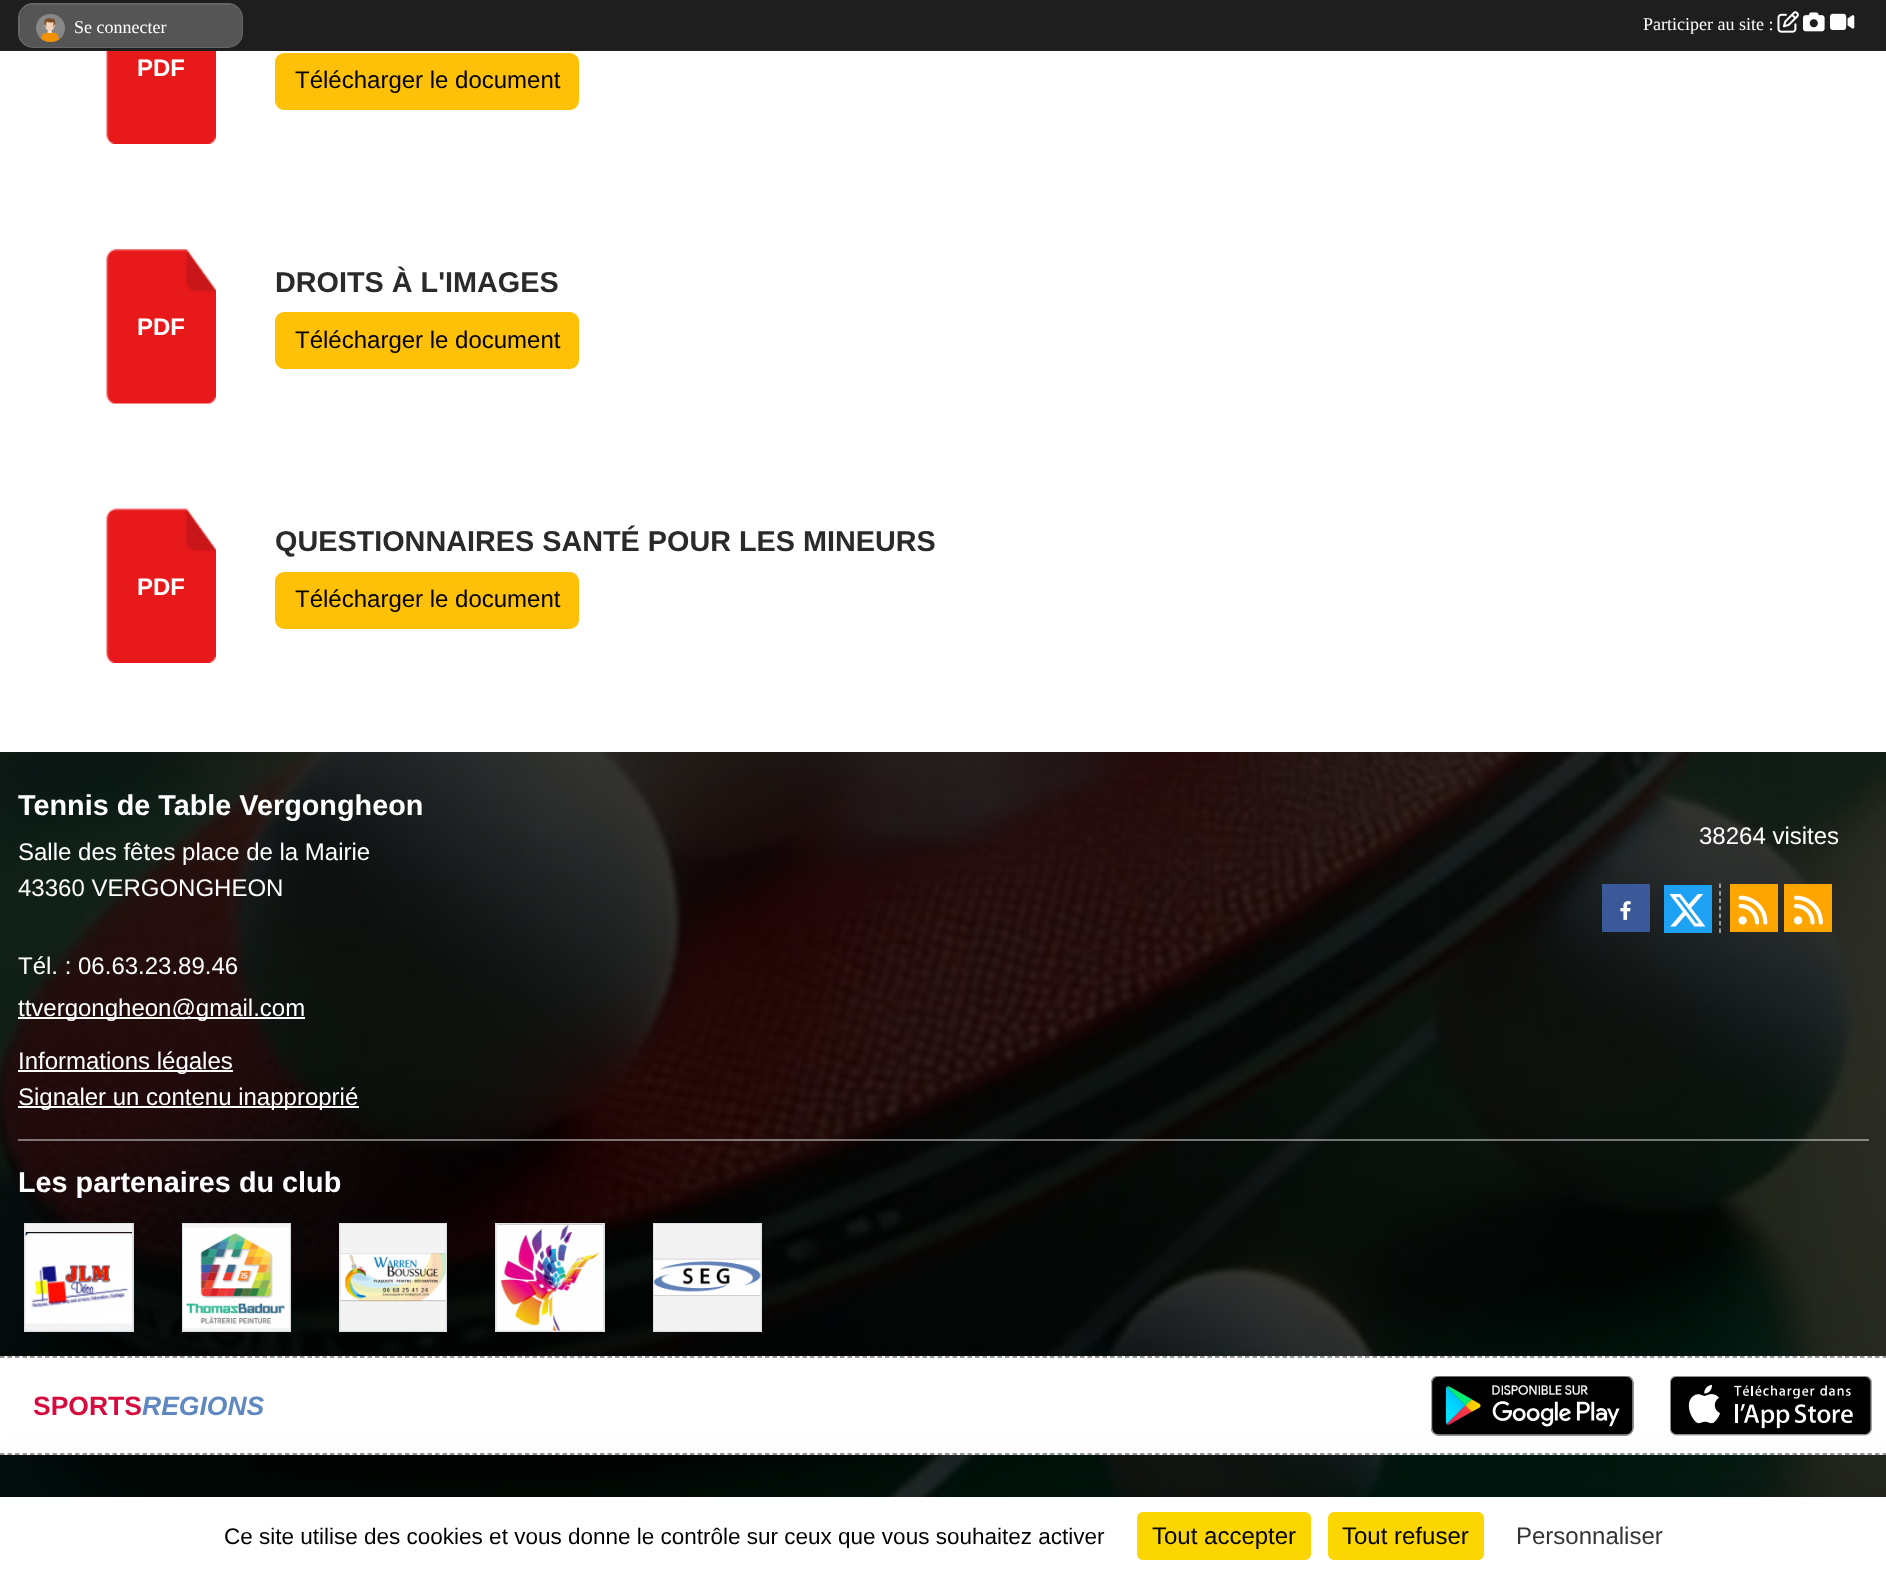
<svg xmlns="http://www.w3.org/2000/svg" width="1886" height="1574">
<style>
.a{font:18px Liberation Serif;fill:#fff}
.b{font:bold 24px Liberation Sans;fill:#fff}
.c{font:24px Liberation Sans;fill:#000}
.d{font:bold 28.8px Liberation Sans;fill:#2a2a2a}
.e{font:bold 28.8px Liberation Sans;fill:#fff}
.f{font:24px Liberation Sans;fill:#fff}
.g{font:bold 26.5px Liberation Sans;fill:#d60c3e}
.h{font:italic bold 26.5px Liberation Sans;fill:#5f88c0}
.i{font:22.5px Liberation Sans;fill:#000}
.j{font:24px Liberation Sans;fill:#333}
</style>
<defs>
<clipPath id="clip1"><path d="M210 1523h911v25H210z"/></clipPath>
</defs>
<rect width="100%" height="100%" fill="#fff"/>
<image href="1.png" x="0" y="752" width="1886" height="745"/>
<path fill="#1e1e1e" d="M0 0h1886v51H0z"/>
<rect fill="#333" stroke="#666" stroke-width="2" x="19" y="4" width="223" height="43" rx="14"/>
<rect fill="#555" x="20" y="5" width="222" height="42" rx="14"/>
<image href="2.png" x="36" y="14" width="29" height="28"/>
<image href="3.png" x="1777" y="11" width="22" height="22"/>
<image href="4.png" x="1803" y="12" width="22" height="20"/>
<image href="5.png" x="1830" y="13" width="25" height="17"/>
<image href="6.png" x="106" y="51" width="110" height="93"/>
<rect fill="#ffc107" stroke="#ffc107" stroke-width="2" x="276" y="54" width="302" height="55" rx="8"/>
<image href="7.png" x="106" y="249" width="110" height="155"/>
<rect fill="#ffc107" stroke="#ffc107" stroke-width="2" x="276" y="313" width="302" height="55" rx="8"/>
<image href="8.png" x="106" y="508" width="110" height="155"/>
<rect fill="#ffc107" stroke="#ffc107" stroke-width="2" x="276" y="573" width="302" height="55" rx="8"/>
<path fill="#000000cc" d="M0 752h1886v387H0z"/>
<path fill="#fff" d="M18 1017h287v2H18z"/>
<path fill="#fff" d="M18 1070h215v2H18z"/>
<path fill="#fff" d="M18 1106h341v2H18z"/>
<path fill="#3b5998" d="M1602 884h48v48H1602z"/>
<image href="9.png" x="1620" y="901" width="11" height="19"/>
<path fill="#1da1f2" d="M1664 885h48v48H1664z"/>
<image href="10.png" x="1670" y="894" width="36" height="33"/>
<path fill="none" stroke="#c0c0c0" stroke-width="1.5" stroke-dasharray="4.5 3" d="M1720 883.5v49.5"/>
<path fill="#ffa500" d="M1730 884h48v48H1730z"/>
<image href="11.png" x="1738" y="895" width="30" height="30"/>
<path fill="#ffa500" d="M1784 884h48v48H1784z"/>
<image href="12.png" x="1794" y="895" width="29" height="30"/>
<path fill="#000000cc" d="M0 1139h1886v72H0z"/>
<path fill="#ffffff40" d="M18 1139h1851v2H18z"/>
<path fill="#ffffff40" d="M18 1139h1851v2H18z"/>
<path fill="#000000cc" d="M0 1211h1886v145H0z"/>
<path fill="none" stroke="#dee2e6" stroke-width="2" d="M25 1224h108v107H25z"/>
<image href="13.png" x="25" y="1224" width="107" height="107"/>
<path fill="none" stroke="#dee2e6" stroke-width="2" d="M183 1224h107v107H183z"/>
<image href="14.png" x="183" y="1224" width="107" height="107"/>
<path fill="none" stroke="#dee2e6" stroke-width="2" d="M340 1224h106v107H340z"/>
<image href="15.png" x="340" y="1224" width="106" height="107"/>
<path fill="none" stroke="#dee2e6" stroke-width="2" d="M496 1224h108v107H496z"/>
<image href="16.png" x="496" y="1224" width="107" height="107"/>
<path fill="none" stroke="#dee2e6" stroke-width="2" d="M654 1224h107v107H654z"/>
<image href="17.png" x="654" y="1224" width="107" height="107"/>
<path fill="#fff" d="M0 1356h1886v99H0z"/>
<path fill="none" stroke="#777" stroke-width="1.5" stroke-dasharray="4.5 3" d="M0 1357h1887"/>
<path fill="none" stroke="#777" stroke-width="1.5" stroke-dasharray="4.5 3" d="M0 1454h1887"/>
<image href="18.png" x="1431" y="1376" width="203" height="60"/>
<image href="19.png" x="1670" y="1376" width="202" height="60"/>
<path fill="#000000cc" d="M0 1455h1886v42H0z"/>
<path fill="#00000040" filter="blur(45px)" d="M0 1527h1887v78H0z"/>
<path fill="#fff" d="M0 1497h1886v77H0z"/>
<rect fill="#fbd600" x="1137" y="1512" width="174" height="48" rx="6"/>
<rect fill="#fbd600" x="1328" y="1512" width="156" height="48" rx="6"/>
<text class="a" x="74" y="33">Se connecter</text>
<text class="a" x="1643" y="30">Participer au site :</text>
<text class="b" x="137" y="76">PDF</text>
<text class="c" x="295" y="88">Télécharger le document</text>
<text class="b" x="137" y="335">PDF</text>
<text class="d" x="275" y="292">DROITS À L'IMAGES</text>
<text class="c" x="295" y="348">Télécharger le document</text>
<text class="b" x="137" y="595">PDF</text>
<text class="d" x="275" y="551">QUESTIONNAIRES SANTÉ POUR LES MINEURS</text>
<text class="c" x="295" y="607">Télécharger le document</text>
<text class="e" x="18" y="815">Tennis de Table Vergongheon</text>
<text class="f" x="18" y="860">Salle des fêtes place de la Mairie</text>
<text class="f" x="18" y="896">43360 VERGONGHEON</text>
<text class="f" x="18" y="974">Tél. : 06.63.23.89.46</text>
<text class="f" x="18" y="1016">ttvergongheon@gmail.com</text>
<text class="f" x="18" y="1069">Informations légales</text>
<text class="f" x="18" y="1105">Signaler un contenu inapproprié</text>
<text class="f" x="1699" y="844">38264 visites</text>
<text class="e" x="18" y="1192">Les partenaires du club</text>
<text class="g" x="33" y="1415">SPORTS</text>
<text class="h" x="142" y="1415">REGIONS</text>
<g clip-path="url(#clip1)">
<text class="i" x="224" y="1544">Ce site utilise des cookies et vous donne le contrôle sur ceux que vous souhaitez activer</text>
</g>
<text class="c" x="1152" y="1544">Tout accepter</text>
<text class="c" x="1342" y="1544">Tout refuser</text>
<text class="j" x="1516" y="1544">Personnaliser</text>
</svg>
